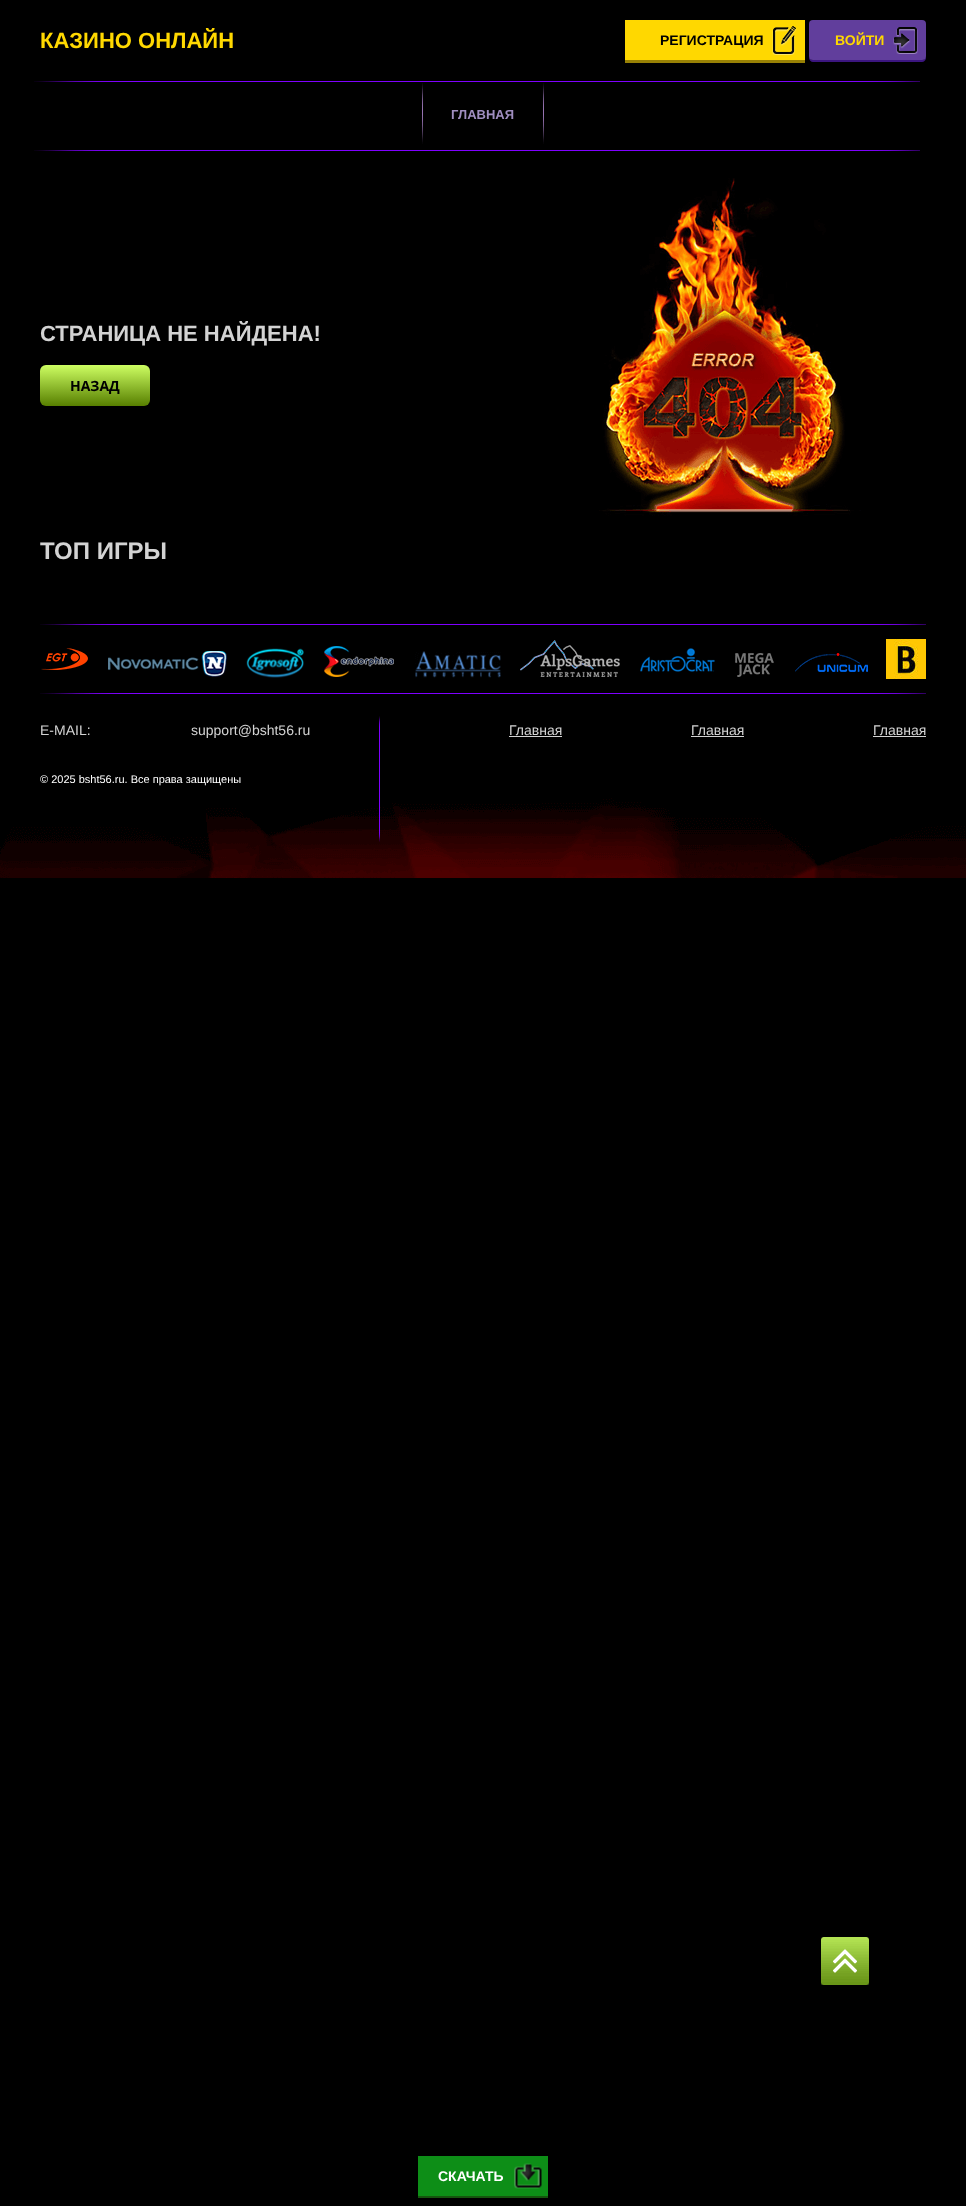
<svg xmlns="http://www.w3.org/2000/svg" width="966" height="2206">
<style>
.a{font:bold 22px Liberation Sans;fill:#ffd800}
.b{font:bold 14px Liberation Sans;fill:#000}
.c{font:bold 14px Liberation Sans;fill:#ffd800}
.d{font:bold 14px Liberation Sans;fill:#fff}
.e{font:bold 13px Liberation Sans;fill:#a08ec0}
.f{font:bold 22px Liberation Sans;fill:#d3d3d3}
.g{font:bold 14px Open Sans;fill:#000}
.h{font:bold 24px Liberation Sans;fill:#d3d3d3}
.i{font:14px Liberation Sans;fill:#d3d3d3}
.j{font:11px Liberation Sans;fill:#fff}
</style>
<defs>
<linearGradient id="g1" gradientUnits="userSpaceOnUse" x1="95" y1="365" x2="95" y2="406"><stop offset="0" stop-color="#cdfe62"/><stop offset="1" stop-color="#577f00"/></linearGradient>
</defs>
<rect width="100%" height="100%" fill="#000"/>
<path fill="#988105" d="M625 60h180v3H625z"/>
<path fill="#ffd800" d="M625 20h180v40H625z"/>
<image href="1.png" x="772" y="26" width="25" height="29"/>
<path fill="#3c1680" d="M809 56v2c0 2 2 4 4 4h109c2 0 4-2 4-4v-2c0 2-2 4-4 4h-109c-2 0-4-2-4-4z"/>
<rect fill="#613e9c" x="809" y="20" width="117" height="40" rx="4"/>
<image href="2.png" x="893" y="27" width="25" height="27"/>
<path fill="#15550d" d="M418 2196h130v2H418z"/>
<path fill="#0d8e17" d="M418 2156h130v40H418z"/>
<image href="3.png" x="514" y="2163" width="28" height="26"/>
<image href="4.png" x="34" y="81" width="886" height="1"/>
<image href="5.png" x="422" y="83" width="1" height="61"/>
<image href="5.png" x="543" y="83" width="1" height="61"/>
<image href="4.png" x="34" y="150" width="886" height="1"/>
<rect fill="url(#g1)" x="40" y="365" width="110" height="41" rx="6"/>
<image href="6.png" x="599" y="178" width="262" height="338"/>
<image href="7.png" x="0" y="798" width="966" height="80"/>
<image href="4.png" x="40" y="624" width="886" height="1"/>
<image href="8.png" x="41" y="648" width="47" height="22"/>
<image href="9.png" x="108" y="651" width="119" height="26"/>
<image href="10.png" x="246" y="648" width="58" height="30"/>
<image href="11.png" x="324" y="646" width="70" height="31"/>
<image href="12.png" x="415" y="651" width="86" height="27"/>
<image href="13.png" x="520" y="640" width="100" height="37"/>
<image href="14.png" x="640" y="648" width="75" height="24"/>
<image href="15.png" x="735" y="653" width="39" height="24"/>
<image href="16.png" x="795" y="653" width="73" height="19"/>
<image href="17.png" x="886" y="639" width="40" height="40"/>
<image href="4.png" x="40" y="693" width="886" height="1"/>
<image href="18.png" x="379" y="716" width="1" height="126"/>
<path fill="#d3d3d3" d="M509 736h53v1H509z"/>
<path fill="#d3d3d3" d="M691 736h53v1H691z"/>
<path fill="#d3d3d3" d="M873 736h53v1H873z"/>
<image href="19.png" x="821" y="1937" width="48" height="48"/>
<text class="a" x="40" y="48">КАЗИНО ОНЛАЙН</text>
<text class="b" x="660" y="45">РЕГИСТРАЦИЯ</text>
<text class="c" x="835" y="45">ВОЙТИ</text>
<text class="d" x="438" y="2181">СКАЧАТЬ</text>
<text class="e" x="451" y="119">ГЛАВНАЯ</text>
<text class="f" x="40" y="341">СТРАНИЦА НЕ НАЙДЕНА!</text>
<text class="g" x="70" y="391">НАЗАД</text>
<text class="h" x="40" y="559">ТОП ИГРЫ</text>
<text class="i" x="40" y="735">E-MAIL:</text>
<text class="i" x="191" y="735">support@bsht56.ru</text>
<text class="j" x="40" y="783">© 2025 bsht56.ru. Все права защищены</text>
<text class="i" x="509" y="735">Главная</text>
<text class="i" x="691" y="735">Главная</text>
<text class="i" x="873" y="735">Главная</text>
</svg>
